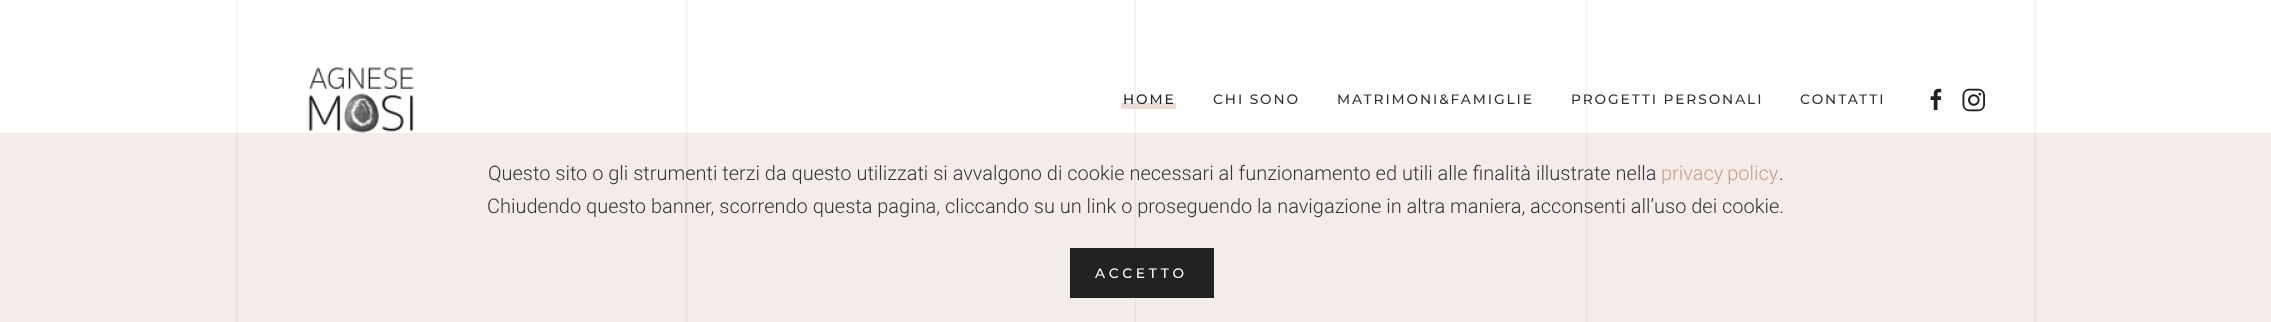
<svg xmlns="http://www.w3.org/2000/svg" width="2271" height="322">
<style>
.a{font:500 13.75px Montserrat;letter-spacing:1.9px;fill:#222}
.b{font:500 13.75px Montserrat;letter-spacing:1.9px;fill:#333}
.c{font:300 20px Roboto;fill:#333}
.d{font:300 20px Roboto;fill:#c99c88}
.e{font:500 13.75px Montserrat;letter-spacing:3.75px;fill:#fff}
</style>
<rect width="100%" height="100%" fill="#fff"/>
<image href="1.png" x="236" y="0" width="1800" height="133"/>
<image href="2.png" x="308" y="67" width="106" height="66"/>
<path fill="#eadbd4" d="M1121 103h55v6H1121z"/>
<image href="3.png" x="1930" y="88" width="12" height="22"/>
<image href="4.png" x="1962" y="88" width="23" height="24"/>
<path fill="#f4ece9" d="M0 133h2271v189H0z"/>
<image href="5.png" x="236" y="133" width="1800" height="189"/>
<path fill="#222" d="M1070 248h144v50H1070z"/>
<text class="a" x="1123" y="104">HOME</text>
<text class="b" x="1213" y="104">CHI SONO</text>
<text class="b" x="1337" y="104">MATRIMONI&amp;FAMIGLIE</text>
<text class="b" x="1571" y="104">PROGETTI PERSONALI</text>
<text class="b" x="1800" y="104">CONTATTI</text>
<text class="c" x="488" y="180">Questo sito o gli strumenti terzi da questo utilizzati si avvalgono di cookie necessari al funzionamento ed utili alle finalità illustrate nella</text>
<text class="d" x="1661" y="180" word-spacing="-1">privacy policy</text>
<text class="c" x="1779" y="180">.</text>
<text class="c" x="487" y="213">Chiudendo questo banner, scorrendo questa pagina, cliccando su un link o proseguendo la navigazione in altra maniera, acconsenti all’uso dei cookie.</text>
<text class="e" x="1095" y="278">ACCETTO</text>
</svg>
